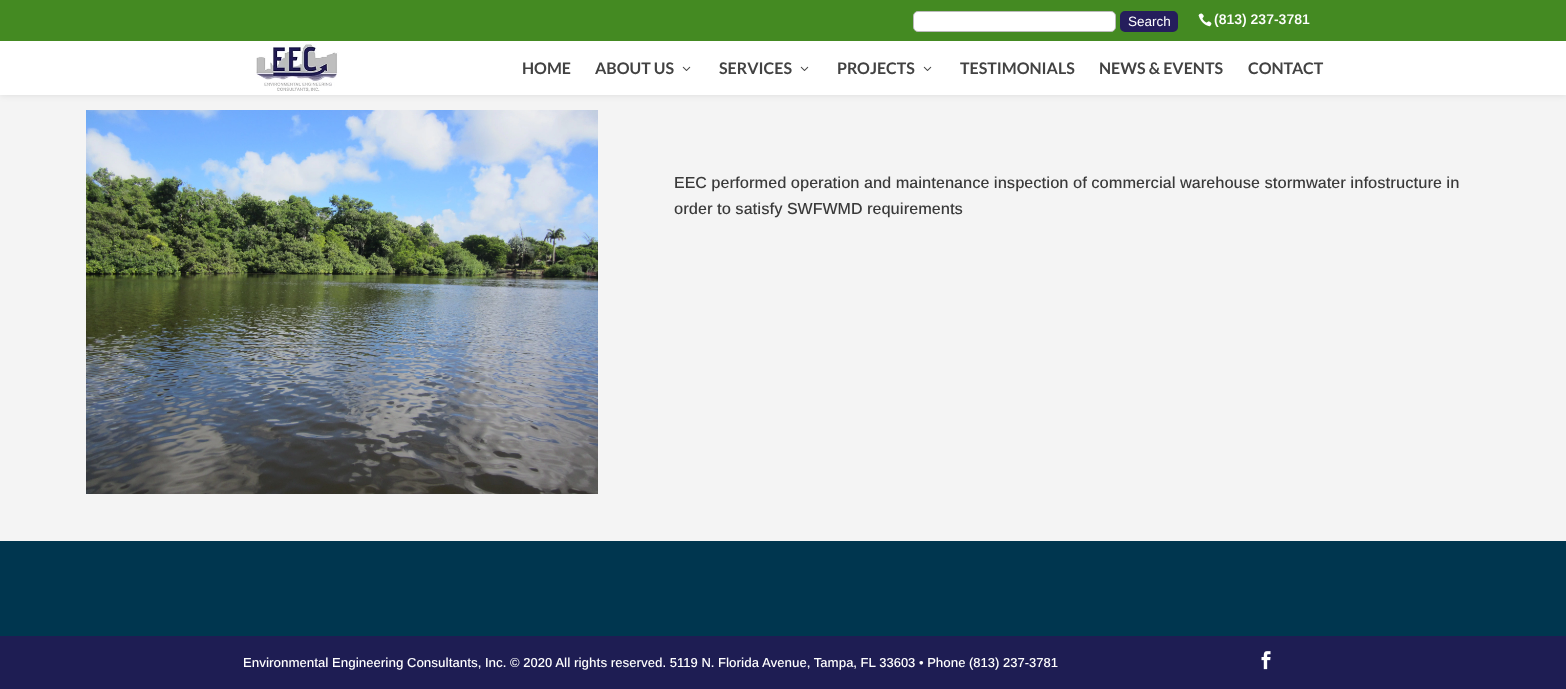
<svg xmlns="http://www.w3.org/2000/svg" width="1566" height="689">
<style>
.a{font:13.5px Arimo;fill:#fff}
.b{font:600 14px Arimo;fill:#fff}
.c{font:bold 16px Lato;fill:#424242}
.d{font:500 16px Arimo;fill:#3a3a3a}
.e{font:500 13px Arimo;fill:#fff}
</style>
<rect width="100%" height="100%" fill="#1e1d53"/>
<path fill="#f4f4f4" d="M0 95h1566v446H0z"/>
<path fill="#0000001a" filter="blur(3.5px)" d="M0 41h1566v54H0z"/>
<path fill="#448a22" d="M0 0h1566v41H0z"/>
<rect fill="#fff" stroke="#bbb" x="913.5" y="11.5" width="202" height="20" rx="4.5"/>
<rect fill="#251e5c" stroke="#251e5c" stroke-width="2" x="1121" y="12" width="56" height="19" rx="4"/>
<image href="1.png" x="1198" y="13" width="14" height="14"/>
<path fill="#fff" d="M0 41h1566v54H0z"/>
<image href="2.png" x="256" y="43" width="83" height="49"/>
<image href="3.png" x="682" y="66" width="9" height="5"/>
<image href="3.png" x="800" y="66" width="9" height="5"/>
<image href="3.png" x="923" y="66" width="9" height="5"/>
<image href="4.png" x="86" y="110" width="512" height="384"/>
<path fill="#00364f" d="M0 541h1566v95H0z"/>
<image href="5.png" x="1261" y="651" width="10" height="19"/>
<text class="a" x="1128" y="26">Search</text>
<text class="b" x="1214" y="24">(813) 237-3781</text>
<text class="c" x="522" y="74">HOME</text>
<text class="c" x="595" y="74">ABOUT US</text>
<text class="c" x="719" y="74">SERVICES</text>
<text class="c" x="837" y="74">PROJECTS</text>
<text class="c" x="960" y="74">TESTIMONIALS</text>
<text class="c" x="1099" y="74">NEWS &amp; EVENTS</text>
<text class="c" x="1248" y="74">CONTACT</text>
<text class="d" x="674" y="188">EEC performed operation and maintenance inspection of commercial warehouse stormwater infostructure in</text>
<text class="d" x="674" y="214">order to satisfy SWFWMD requirements</text>
<text class="e" x="243" y="667">Environmental Engineering Consultants, Inc. © 2020 All rights reserved. 5119 N. Florida Avenue, Tampa, FL 33603 • Phone (813) 237-3781</text>
</svg>
